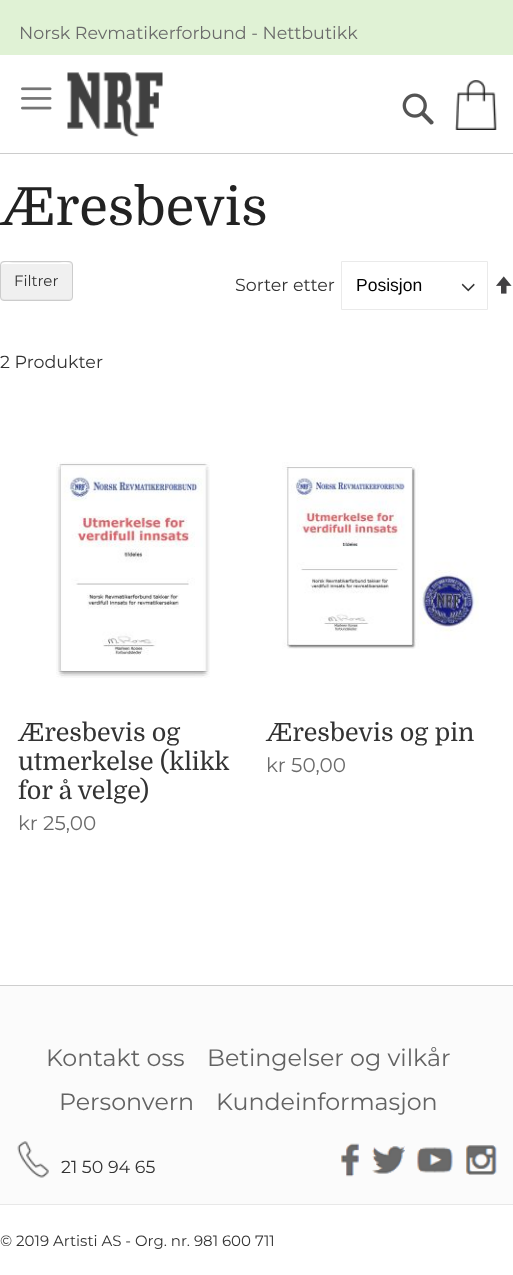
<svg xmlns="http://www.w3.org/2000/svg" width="513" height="1275">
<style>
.a{font:17.5px Montserrat;fill:#6b6b6b}
.b{font:52.5px Domine;fill:#222}
.c{font:15px Montserrat;fill:#333}
.d{font:17.5px Montserrat;fill:#333}
.e{font:17.5px Liberation Sans;fill:#000}
.f{font:25px Domine;fill:#333}
.g{font:20px Montserrat;fill:#6b6b6b}
.h{font:23.75px Montserrat;fill:#636363}
</style>
<rect width="100%" height="100%" fill="#fff"/>
<path fill="#ccc" d="M0 153h513v1H0z"/>
<path fill="#e0f2d5" d="M0 0h513v55H0z"/>
<image href="1.png" x="21" y="87" width="31" height="23"/>
<image href="2.png" x="67" y="72" width="96" height="65"/>
<image href="3.png" x="402" y="93" width="32" height="32"/>
<image href="4.png" x="455" y="80" width="42" height="50"/>
<rect fill="#f0f0f0" y="261" width="73" height="40" rx="4"/>
<path fill="#e5e5e5" d="M1 296c0 7 8 4 13 4h44c5 0 13 3 13-4c0 2-1 3-2 3h-65c-2 0-3-1-3-3z"/>
<path fill="#fff" d="M4 264h66l1 2c0-6-12-3-13-3h-44c-1 0-13-3-13 3c0-1 1-2 3-2z"/>
<rect fill="none" stroke="#ccc" x="0.5" y="261.5" width="72" height="39" rx="3.5"/>
<image href="5.png" x="461" y="283" width="14" height="9"/>
<path fill="none" stroke="#eaeaea" d="M341.5 261.5h146v48H341.5z"/>
<image href="6.png" x="496" y="276" width="16" height="18"/>
<image href="7.png" x="56" y="462" width="154" height="216"/>
<image href="8.png" x="282" y="462" width="197" height="187"/>
<path fill="#fbfbfb" d="M0 986h513v218H0z"/>
<path fill="#e8e8e8" d="M0 1204h513v1H0z"/>
<path fill="#cecece" d="M0 985h513v1H0z"/>
<image href="9.png" x="17" y="1141" width="32" height="37"/>
<image href="10.png" x="341" y="1143" width="18" height="34"/>
<image href="11.png" x="372" y="1146" width="33" height="28"/>
<image href="12.png" x="417" y="1147" width="36" height="26"/>
<image href="13.png" x="466" y="1145" width="31" height="30"/>
<text class="a" x="19" y="39">Norsk Revmatikerforbund - Nettbutikk</text>
<text class="b" x="0" y="225">Æresbevis</text>
<text class="c" x="14" y="286">Filtrer</text>
<text class="d" x="235" y="291">Sorter etter</text>
<text class="e" x="356" y="291">Posisjon</text>
<text class="d" x="0" y="368">2 Produkter</text>
<text class="f" x="18" y="741">Æresbevis og</text>
<text class="f" x="18" y="770">utmerkelse (klikk</text>
<text class="f" x="18" y="799">for å velge)</text>
<text class="g" x="18" y="830">kr 25,00</text>
<text class="f" x="266" y="741">Æresbevis og pin</text>
<text class="g" x="266" y="772">kr 50,00</text>
<text class="h" x="46" y="1066">Kontakt oss</text>
<text class="h" x="207" y="1066">Betingelser og vilkår</text>
<text class="h" x="59" y="1110">Personvern</text>
<text class="h" x="216" y="1110">Kundeinformasjon</text>
<text class="d" x="61" y="1173">21 50 94 65</text>
<text class="c" x="0" y="1246">© 2019 Artisti AS - Org. nr. 981 600 711</text>
</svg>
